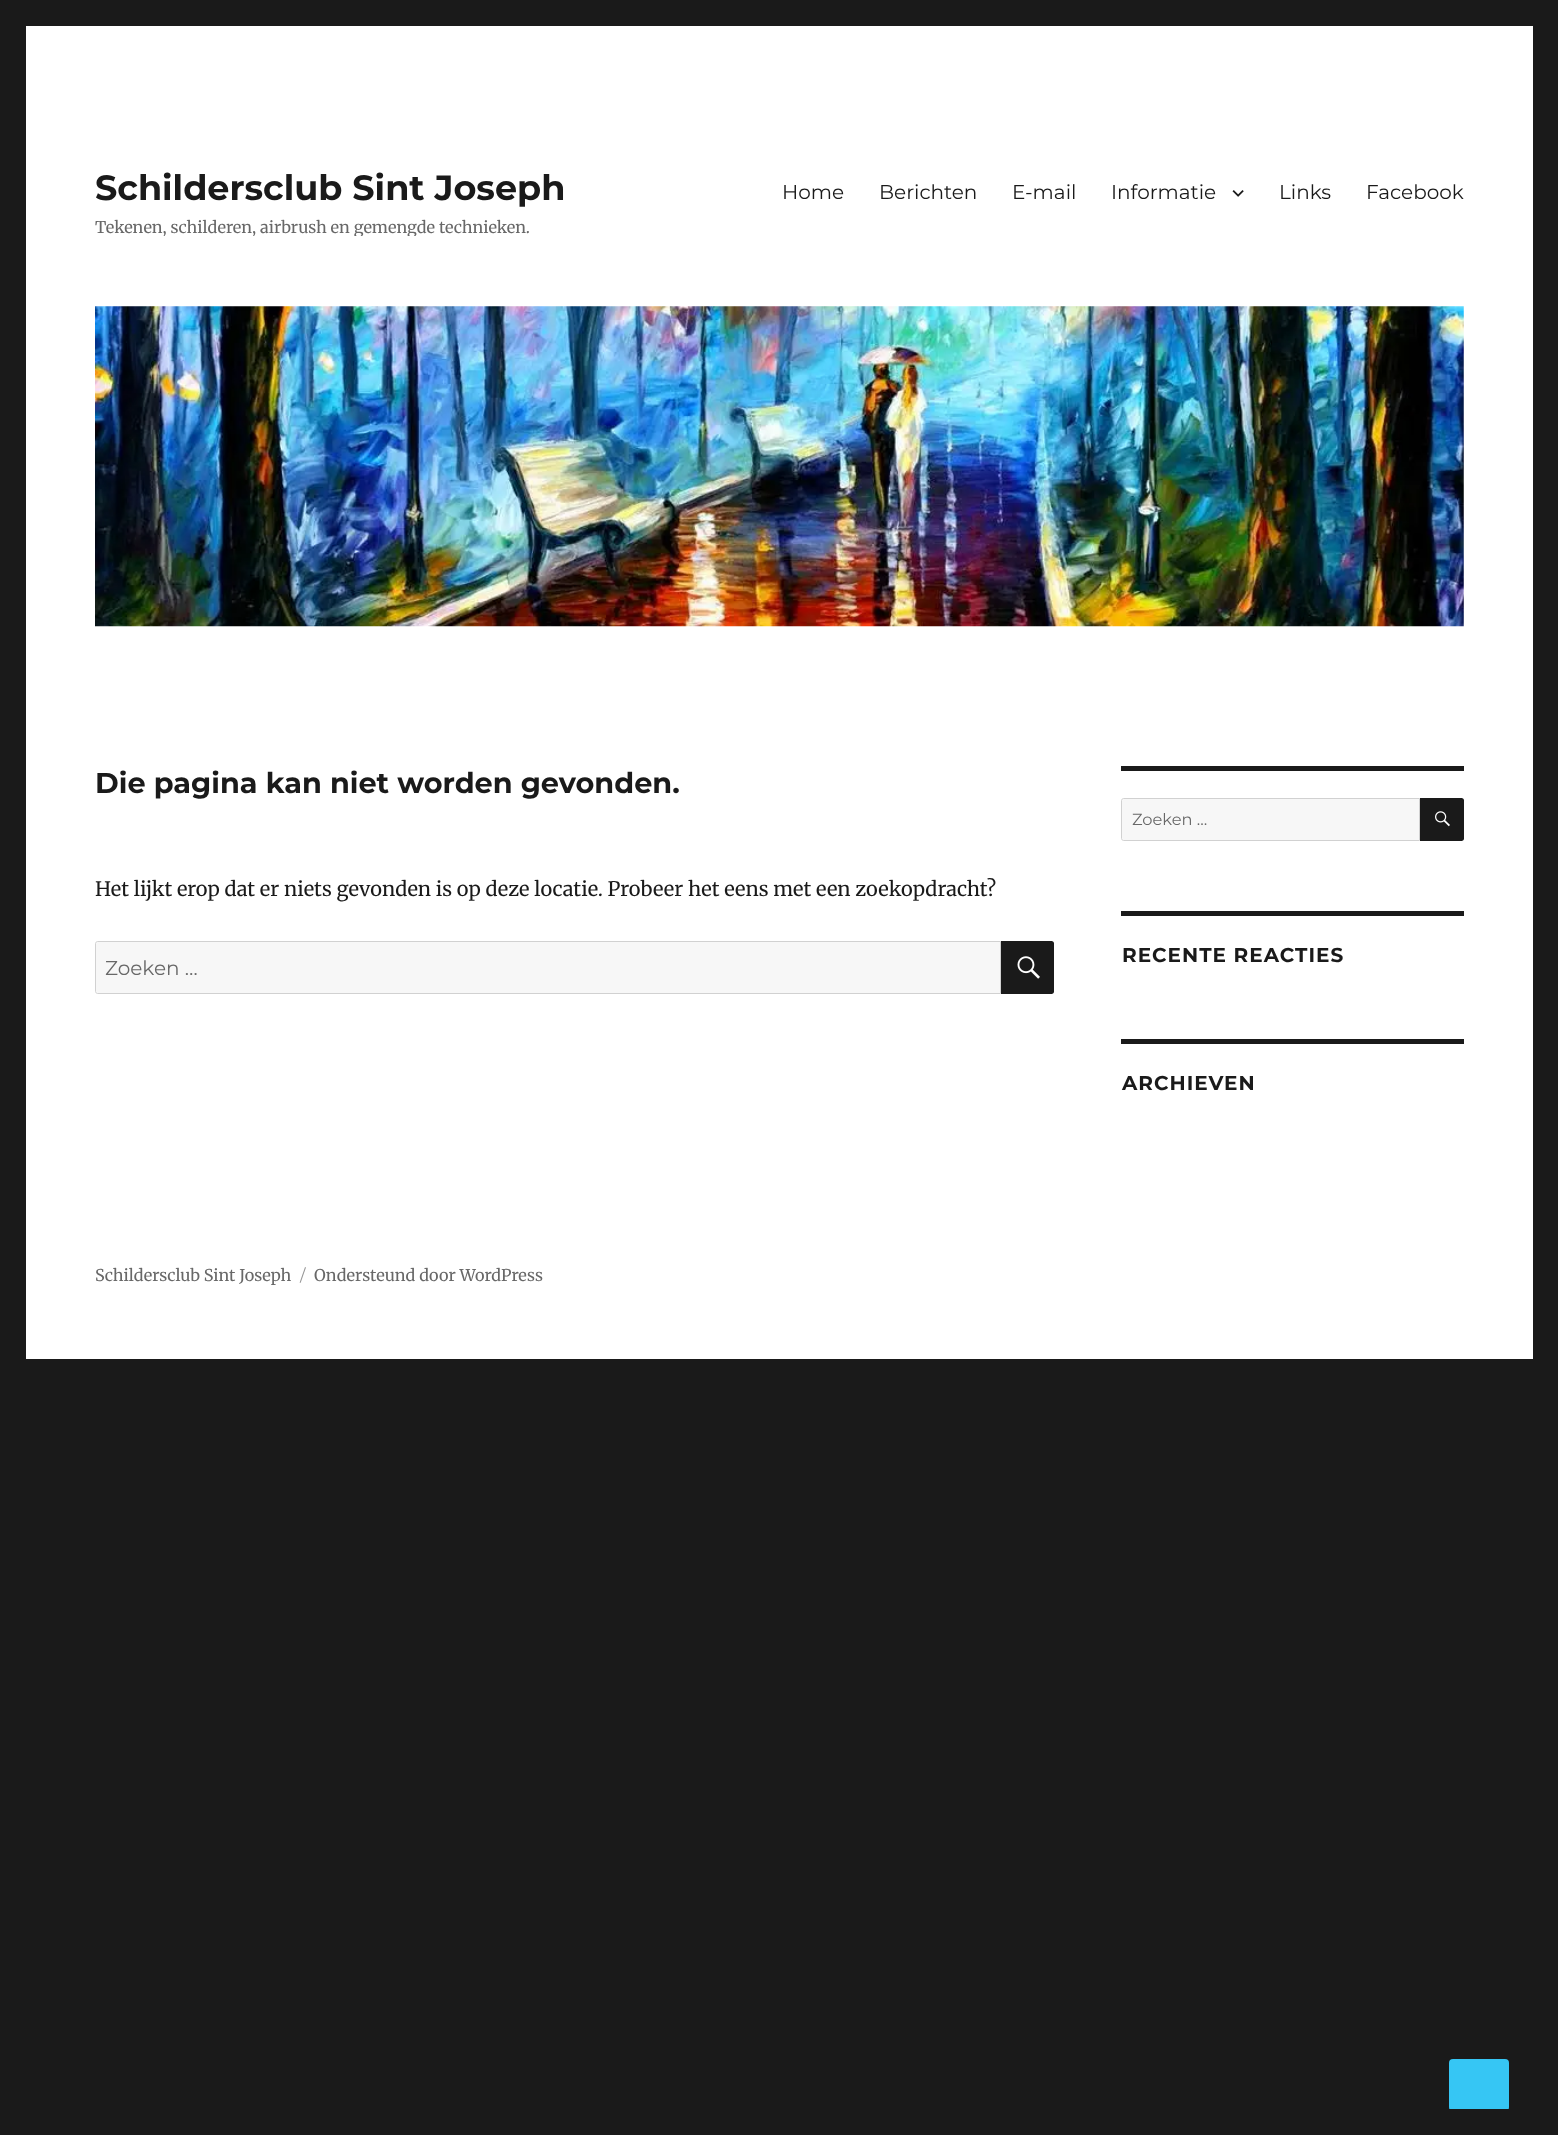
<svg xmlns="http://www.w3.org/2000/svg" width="1558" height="2135">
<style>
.a{font:bold 35px Montserrat;fill:#1a1a1a}
.b{font:16.25px Merriweather;fill:#686868}
.c{font:20px Montserrat;fill:#1a1a1a}
.d{font:bold 28.75px Montserrat;fill:#1a1a1a}
.e{font:20px Merriweather;fill:#1a1a1a}
.f{font:20px Montserrat;fill:#686868}
.g{font:16.25px Montserrat;fill:#686868}
.h{font:bold 20px Montserrat;letter-spacing:1px;fill:#1a1a1a}
.i{font:16.25px Montserrat;fill:#959595}
</style>
<defs>
<clipPath id="clip1"><path d="M95 166h470v70H95z"/></clipPath>
</defs>
<rect width="100%" height="100%" fill="#1a1a1a"/>
<path fill="#fff" d="M26 26h1507v1333H26z"/>
<image href="1.png" x="1232" y="190" width="12" height="7"/>
<image href="2.png" x="95" y="306" width="1369" height="321"/>
<path fill="#f7f7f7" stroke="#d1d1d1" d="M97.5 941.5h903v52h-903c-1 0-2-1-2-2v-48c0-1 1-2 2-2z"/>
<path fill="#1a1a1a" d="M1001 941h50.5c1.5 0 2.5 1 2.5 2.5v48c0 1.5-1 2.5-2.5 2.5h-50.5z"/>
<image href="3.png" x="1017" y="956" width="23" height="23"/>
<path fill="#1a1a1a" d="M1121 766h343v5H1121z"/>
<path fill="#f7f7f7" stroke="#d1d1d1" d="M1123.5 798.5h296v42h-296c-1 0-2-1-2-2v-38c0-1 1-2 2-2z"/>
<path fill="#1a1a1a" d="M1420 798h41.5c1.5 0 2.5 1 2.5 2.5v38c0 1.5-1 2.5-2.5 2.5h-41.5z"/>
<image href="4.png" x="1435" y="811" width="15" height="16"/>
<path fill="#1a1a1a" d="M1121 911h343v5H1121z"/>
<path fill="#1a1a1a" d="M1121 1039h343v5H1121z"/>
<rect fill="#36c6f4" x="1449" y="2059" width="60" height="52" rx="4"/>
<path fill="#1a1a1a" d="M1449 2109h60v2H1449z"/>
<text class="a" x="95" y="200">Schildersclub Sint Joseph</text>
<g clip-path="url(#clip1)">
<text class="b" x="95" y="233">Tekenen, schilderen, airbrush en gemengde technieken.</text>
</g>
<text class="c" x="782" y="199">Home</text>
<text class="c" x="879" y="199">Berichten</text>
<text class="c" x="1012" y="199">E-mail</text>
<text class="c" x="1111" y="199">Informatie</text>
<text class="c" x="1279" y="199">Links</text>
<text class="c" x="1366" y="199">Facebook</text>
<text class="d" x="95" y="793">Die pagina kan niet worden gevonden.</text>
<text class="e" x="95" y="896">Het lijkt erop dat er niets gevonden is op deze locatie. Probeer het eens met een zoekopdracht?</text>
<text class="f" x="105" y="975">Zoeken …</text>
<text class="g" x="1132" y="825">Zoeken …</text>
<text class="h" x="1122" y="962">RECENTE REACTIES</text>
<text class="h" x="1122" y="1090">ARCHIEVEN</text>
<text class="b" x="95" y="1281">Schildersclub Sint Joseph</text>
<text class="i" x="300" y="1281">/</text>
<text class="b" x="314" y="1281">Ondersteund door WordPress</text>
</svg>
